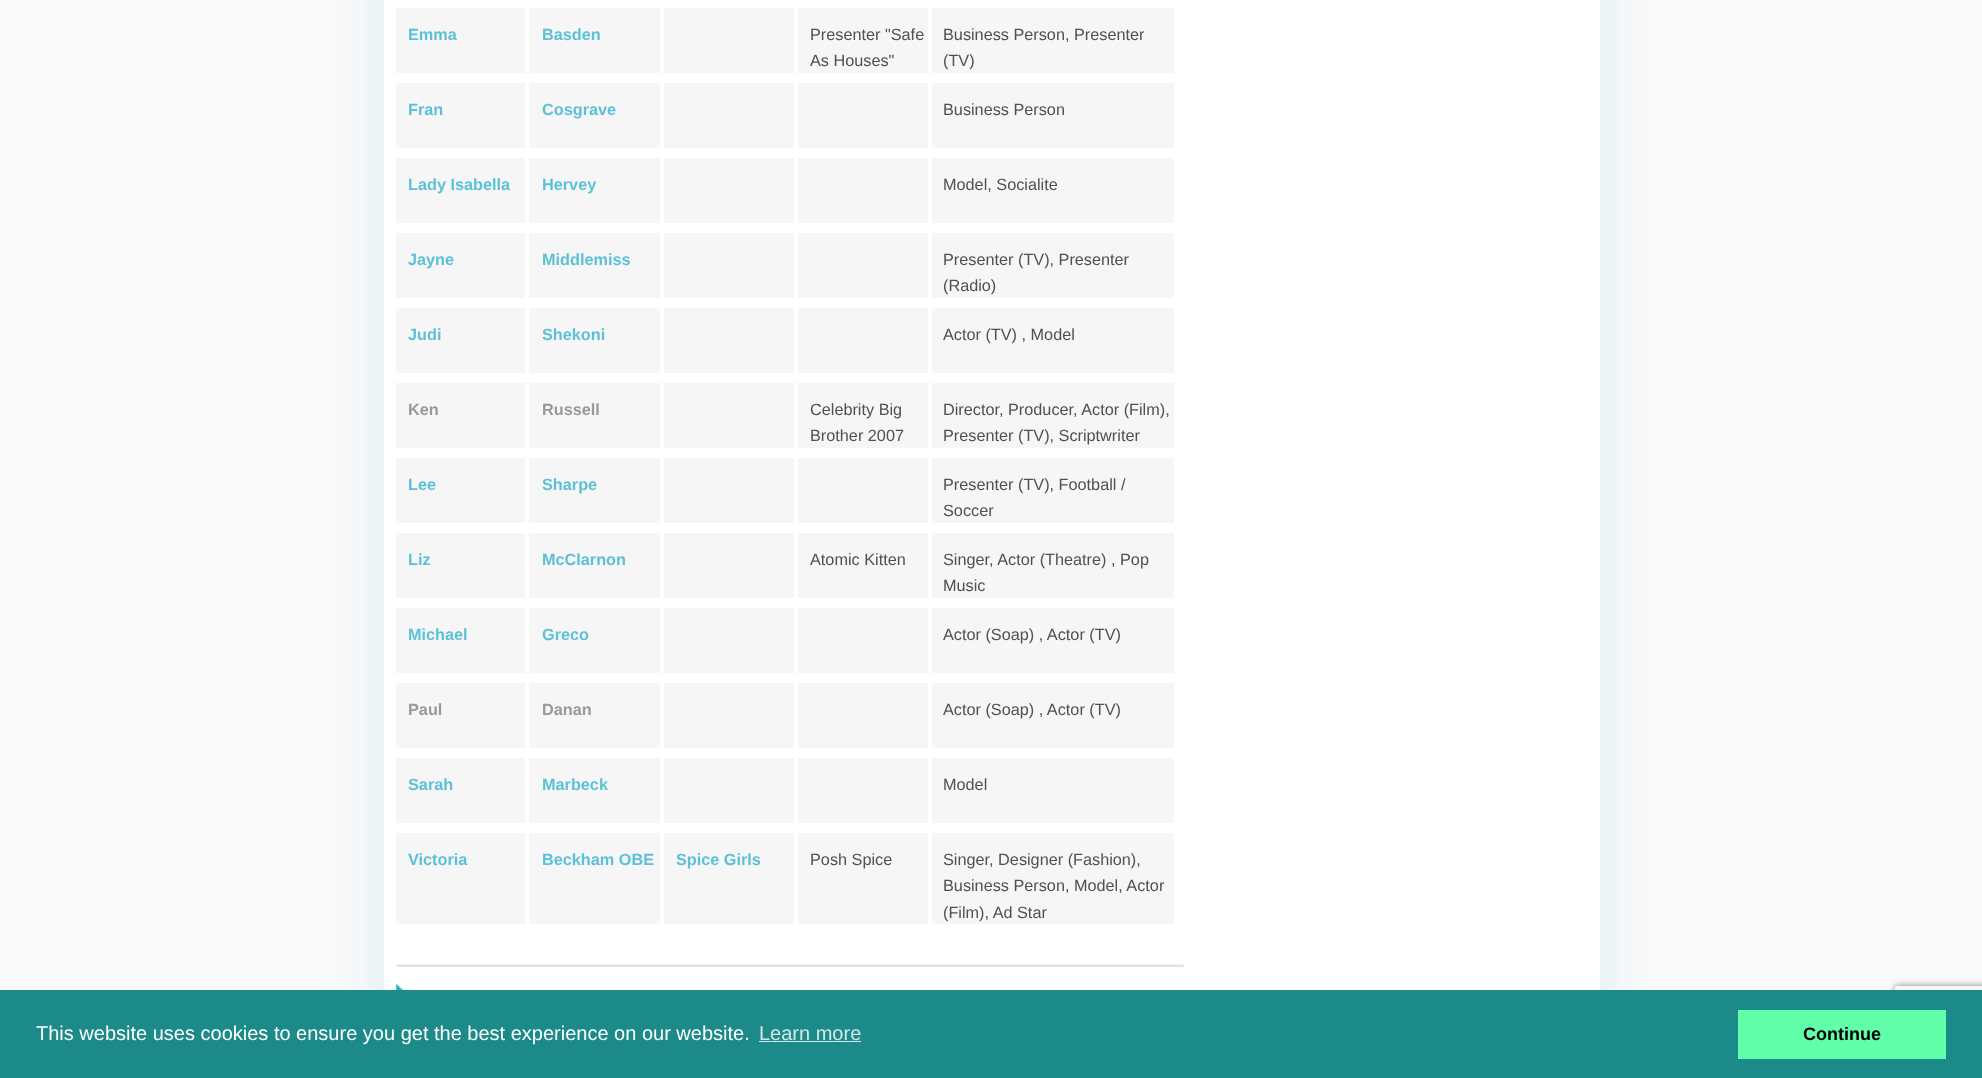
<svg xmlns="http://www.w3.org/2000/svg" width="1982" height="1078">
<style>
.a{font:bold 16.25px Liberation Sans;fill:#5cc1d7}
.b{font:16.25px Liberation Sans;fill:#505050}
.c{font:bold 16.25px Liberation Sans;fill:#999}
.d{font:20px Liberation Sans;fill:#fff}
.e{font:20px Liberation Sans;fill:#d2e8e8}
.f{font:bold 18px Liberation Sans;fill:#000}
</style>
<defs>
<clipPath id="clip1"><path d="M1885 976h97v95h-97zm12.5 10h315c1.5 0 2.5 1 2.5 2.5v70c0 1.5-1 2.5-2.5 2.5h-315c-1.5 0-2.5-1-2.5-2.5v-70c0-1.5 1-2.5 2.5-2.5z" clip-rule="evenodd"/></clipPath>
</defs>
<rect width="100%" height="100%" fill="#f9f9f9"/>
<path fill="#d7edf3" filter="blur(25px)" d="M384 -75h1216v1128H384z"/>
<path fill="#fff" d="M384 0h1216v990H384z"/>
<path fill="#f6f6f6" d="M396 8h778v65H396z"/>
<path fill="#fff" d="M525 8h4v65H525z"/>
<path fill="#fff" d="M660 8h4v65H660z"/>
<path fill="#fff" d="M794 8h4v65H794z"/>
<path fill="#fff" d="M928 8h4v65H928z"/>
<path fill="#f6f6f6" d="M396 83h778v65H396z"/>
<path fill="#fff" d="M525 83h4v65H525z"/>
<path fill="#fff" d="M660 83h4v65H660z"/>
<path fill="#fff" d="M794 83h4v65H794z"/>
<path fill="#fff" d="M928 83h4v65H928z"/>
<path fill="#f6f6f6" d="M396 158h778v65H396z"/>
<path fill="#fff" d="M525 158h4v65H525z"/>
<path fill="#fff" d="M660 158h4v65H660z"/>
<path fill="#fff" d="M794 158h4v65H794z"/>
<path fill="#fff" d="M928 158h4v65H928z"/>
<path fill="#f6f6f6" d="M396 233h778v65H396z"/>
<path fill="#fff" d="M525 233h4v65H525z"/>
<path fill="#fff" d="M660 233h4v65H660z"/>
<path fill="#fff" d="M794 233h4v65H794z"/>
<path fill="#fff" d="M928 233h4v65H928z"/>
<path fill="#f6f6f6" d="M396 308h778v65H396z"/>
<path fill="#fff" d="M525 308h4v65H525z"/>
<path fill="#fff" d="M660 308h4v65H660z"/>
<path fill="#fff" d="M794 308h4v65H794z"/>
<path fill="#fff" d="M928 308h4v65H928z"/>
<path fill="#f6f6f6" d="M396 383h778v65H396z"/>
<path fill="#fff" d="M525 383h4v65H525z"/>
<path fill="#fff" d="M660 383h4v65H660z"/>
<path fill="#fff" d="M794 383h4v65H794z"/>
<path fill="#fff" d="M928 383h4v65H928z"/>
<path fill="#f6f6f6" d="M396 458h778v65H396z"/>
<path fill="#fff" d="M525 458h4v65H525z"/>
<path fill="#fff" d="M660 458h4v65H660z"/>
<path fill="#fff" d="M794 458h4v65H794z"/>
<path fill="#fff" d="M928 458h4v65H928z"/>
<path fill="#f6f6f6" d="M396 533h778v65H396z"/>
<path fill="#fff" d="M525 533h4v65H525z"/>
<path fill="#fff" d="M660 533h4v65H660z"/>
<path fill="#fff" d="M794 533h4v65H794z"/>
<path fill="#fff" d="M928 533h4v65H928z"/>
<path fill="#f6f6f6" d="M396 608h778v65H396z"/>
<path fill="#fff" d="M525 608h4v65H525z"/>
<path fill="#fff" d="M660 608h4v65H660z"/>
<path fill="#fff" d="M794 608h4v65H794z"/>
<path fill="#fff" d="M928 608h4v65H928z"/>
<path fill="#f6f6f6" d="M396 683h778v65H396z"/>
<path fill="#fff" d="M525 683h4v65H525z"/>
<path fill="#fff" d="M660 683h4v65H660z"/>
<path fill="#fff" d="M794 683h4v65H794z"/>
<path fill="#fff" d="M928 683h4v65H928z"/>
<path fill="#f6f6f6" d="M396 758h778v65H396z"/>
<path fill="#fff" d="M525 758h4v65H525z"/>
<path fill="#fff" d="M660 758h4v65H660z"/>
<path fill="#fff" d="M794 758h4v65H794z"/>
<path fill="#fff" d="M928 758h4v65H928z"/>
<path fill="#f6f6f6" d="M396 833h778v91H396z"/>
<path fill="#fff" d="M525 833h4v91H525z"/>
<path fill="#fff" d="M660 833h4v91H660z"/>
<path fill="#fff" d="M794 833h4v91H794z"/>
<path fill="#fff" d="M928 833h4v91H928z"/>
<image href="1.png" x="396" y="964" width="788" height="3"/>
<image href="2.png" x="396" y="983" width="8" height="7"/>
<g clip-path="url(#clip1)">
<rect fill="#808080" filter="blur(3px)" x="1895" y="986" width="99" height="75" rx="2.5"/>
</g>
<path fill="#1d8a8a" d="M0 990h1982v88H0z"/>
<path fill="#d2e8e8" d="M759 1041h102v1H759z"/>
<path fill="#62ffaa" d="M1738 1010h208v49H1738z"/>
<text class="a" x="408" y="40">Emma</text>
<text class="a" x="542" y="40">Basden</text>
<text class="b" x="810" y="40">Presenter "Safe</text>
<text class="b" x="810" y="66">As Houses"</text>
<text class="b" x="943" y="40">Business Person, Presenter</text>
<text class="b" x="943" y="66">(TV)</text>
<text class="a" x="408" y="115">Fran</text>
<text class="a" x="542" y="115">Cosgrave</text>
<text class="b" x="943" y="115">Business Person</text>
<text class="a" x="408" y="190">Lady Isabella</text>
<text class="a" x="542" y="190">Hervey</text>
<text class="b" x="943" y="190">Model, Socialite</text>
<text class="a" x="408" y="265">Jayne</text>
<text class="a" x="542" y="265">Middlemiss</text>
<text class="b" x="943" y="265">Presenter (TV), Presenter</text>
<text class="b" x="943" y="291">(Radio)</text>
<text class="a" x="408" y="340">Judi</text>
<text class="a" x="542" y="340">Shekoni</text>
<text class="b" x="943" y="340">Actor (TV) , Model</text>
<text class="c" x="408" y="415">Ken</text>
<text class="c" x="542" y="415">Russell</text>
<text class="b" x="810" y="415">Celebrity Big</text>
<text class="b" x="810" y="441">Brother 2007</text>
<text class="b" x="943" y="415">Director, Producer, Actor (Film),</text>
<text class="b" x="943" y="441">Presenter (TV), Scriptwriter</text>
<text class="a" x="408" y="490">Lee</text>
<text class="a" x="542" y="490">Sharpe</text>
<text class="b" x="943" y="490">Presenter (TV), Football /</text>
<text class="b" x="943" y="516">Soccer</text>
<text class="a" x="408" y="565">Liz</text>
<text class="a" x="542" y="565">McClarnon</text>
<text class="b" x="810" y="565">Atomic Kitten</text>
<text class="b" x="943" y="565">Singer, Actor (Theatre) , Pop</text>
<text class="b" x="943" y="591">Music</text>
<text class="a" x="408" y="640">Michael</text>
<text class="a" x="542" y="640">Greco</text>
<text class="b" x="943" y="640">Actor (Soap) , Actor (TV)</text>
<text class="c" x="408" y="715">Paul</text>
<text class="c" x="542" y="715">Danan</text>
<text class="b" x="943" y="715">Actor (Soap) , Actor (TV)</text>
<text class="a" x="408" y="790">Sarah</text>
<text class="a" x="542" y="790">Marbeck</text>
<text class="b" x="943" y="790">Model</text>
<text class="a" x="408" y="865">Victoria</text>
<text class="a" x="542" y="865">Beckham OBE</text>
<text class="a" x="676" y="865">Spice Girls</text>
<text class="b" x="810" y="865">Posh Spice</text>
<text class="b" x="943" y="865">Singer, Designer (Fashion),</text>
<text class="b" x="943" y="891">Business Person, Model, Actor</text>
<text class="b" x="943" y="918">(Film), Ad Star</text>
<text class="d" x="36" y="1040">This website uses cookies to ensure you get the best experience on our website.</text>
<text class="e" x="759" y="1040">Learn more</text>
<text class="f" x="1803" y="1040">Continue</text>
</svg>
